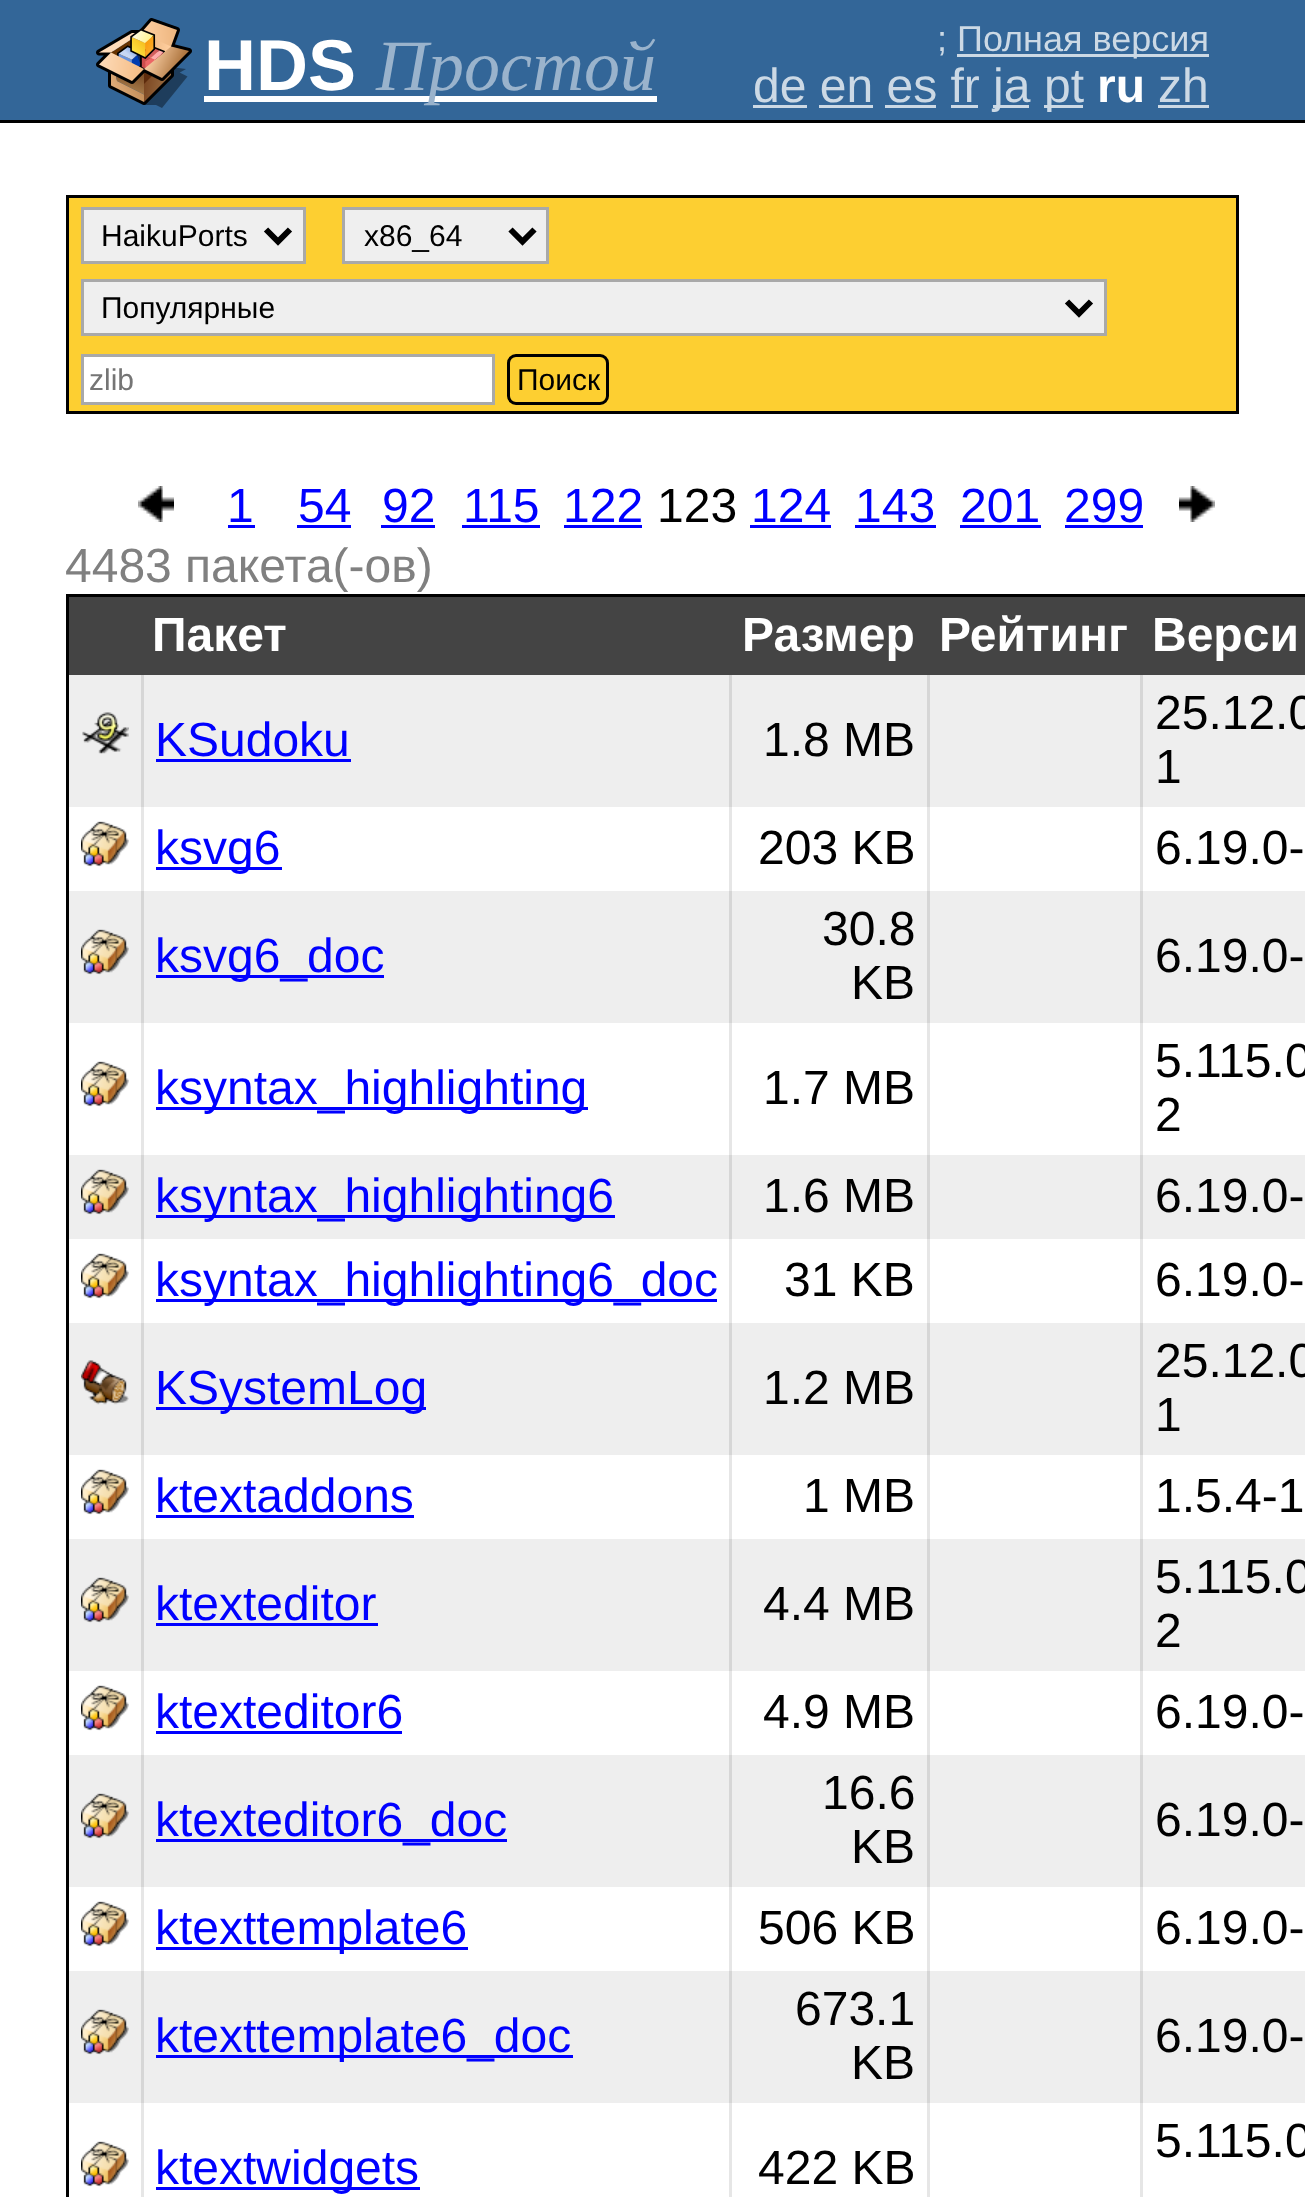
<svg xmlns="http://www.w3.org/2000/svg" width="1305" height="2197">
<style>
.a{font:bold 72px Liberation Sans;fill:#fff}
.b{font:italic 72px Liberation Serif;fill:#9ab3cc}
.c{font:36px Liberation Sans;fill:#ccd9e5}
.d{font:48px Liberation Sans;fill:#ccd9e5}
.e{font:bold 48px Liberation Sans;fill:#fff}
.f{font:30px Liberation Sans;fill:#000}
.g{font:30px Liberation Sans;fill:#757575}
.h{font:48px Liberation Sans;fill:#00f}
.i{font:48px Liberation Sans;fill:#000}
.j{font:48px Liberation Sans;fill:#808080}
</style>
<rect width="100%" height="100%" fill="#fff"/>
<path fill="#336698" d="M0 0h1305v120H0z"/>
<path fill="#000" d="M0 120h1305v3H0z"/>
<image href="1.png" x="96" y="18" width="96" height="90"/>
<path fill="#fff" d="M204 96h453v6H204z"/>
<path fill="#ccd9e5" d="M957 54h252v3H957z"/>
<path fill="#ccd9e5" d="M753 105h54v3H753z"/>
<path fill="#ccd9e5" d="M819 105h54v3H819z"/>
<path fill="#ccd9e5" d="M885 105h51v3H885z"/>
<path fill="#ccd9e5" d="M951 105h27v3H951z"/>
<path fill="#ccd9e5" d="M993 105h36v3H993z"/>
<path fill="#ccd9e5" d="M1044 105h39v3H1044z"/>
<path fill="#ccd9e5" d="M1158 105h51v3H1158z"/>
<path fill="#fdcf31" stroke="#000" stroke-width="3" d="M67.5 196.5h1170v216H67.5z"/>
<path fill="#efefef" stroke="#a9a9a9" stroke-width="3" d="M82.5 208.5h222v54H82.5z"/>
<path fill="none" stroke="#000" stroke-width="6" d="M266 229.5l12 12l12-12"/>
<path fill="#efefef" stroke="#a9a9a9" stroke-width="3" d="M343.5 208.5h204v54H343.5z"/>
<path fill="none" stroke="#000" stroke-width="6" d="M510.5 229.5l12 12l12-12"/>
<path fill="#efefef" stroke="#a9a9a9" stroke-width="3" d="M82.5 280.5h1023v54H82.5z"/>
<path fill="none" stroke="#000" stroke-width="6" d="M1067 301.5l12 12l12-12"/>
<path fill="#fff" stroke="#a9a9a9" stroke-width="3" d="M82.5 355.5h411v48H82.5z"/>
<rect fill="none" stroke="#000" stroke-width="3" x="508.5" y="355.5" width="99" height="48" rx="7.5"/>
<image href="2.png" x="138" y="486" width="36" height="36"/>
<path fill="#00f" d="M228 525h27v3H228z"/>
<path fill="#00f" d="M297 525h54v3H297z"/>
<path fill="#00f" d="M381 525h54v3H381z"/>
<path fill="#00f" d="M462 525h78v3H462z"/>
<path fill="#00f" d="M564 525h78v3H564z"/>
<path fill="#00f" d="M750 525h81v3H750z"/>
<path fill="#00f" d="M855 525h81v3H855z"/>
<path fill="#00f" d="M960 525h81v3H960z"/>
<path fill="#00f" d="M1065 525h78v3H1065z"/>
<image href="3.png" x="1179" y="486" width="36" height="36"/>
<path fill="none" stroke="#000" stroke-width="3" d="M67.5 595.5h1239v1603H67.5z"/>
<path fill="#444" d="M69 597h1236v78H69z"/>
<path fill="#eee" d="M69 675h1236v132H69z"/>
<image href="4.png" x="82" y="712" width="47" height="42"/>
<path fill="#d6d6d6" d="M141 675h3v132H141z"/>
<path fill="#00f" d="M156 759h195v3H156z"/>
<path fill="#d6d6d6" d="M729 675h3v132H729z"/>
<path fill="#d6d6d6" d="M927 675h3v132H927z"/>
<path fill="#d6d6d6" d="M1140 675h3v132H1140z"/>
<image href="5.png" x="81" y="821" width="48" height="46"/>
<path fill="#e6e6e6" d="M141 807h3v84H141z"/>
<path fill="#00f" d="M156 867h126v3H156z"/>
<path fill="#e6e6e6" d="M729 807h3v84H729z"/>
<path fill="#e6e6e6" d="M927 807h3v84H927z"/>
<path fill="#e6e6e6" d="M1140 807h3v84H1140z"/>
<path fill="#eee" d="M69 891h1236v132H69z"/>
<image href="6.png" x="81" y="929" width="48" height="46"/>
<path fill="#d6d6d6" d="M141 891h3v132H141z"/>
<path fill="#00f" d="M156 975h228v3H156z"/>
<path fill="#d6d6d6" d="M729 891h3v132H729z"/>
<path fill="#d6d6d6" d="M927 891h3v132H927z"/>
<path fill="#d6d6d6" d="M1140 891h3v132H1140z"/>
<image href="5.png" x="81" y="1061" width="48" height="46"/>
<path fill="#e6e6e6" d="M141 1023h3v132H141z"/>
<path fill="#00f" d="M156 1107h432v3H156z"/>
<path fill="#e6e6e6" d="M729 1023h3v132H729z"/>
<path fill="#e6e6e6" d="M927 1023h3v132H927z"/>
<path fill="#e6e6e6" d="M1140 1023h3v132H1140z"/>
<path fill="#eee" d="M69 1155h1236v84H69z"/>
<image href="6.png" x="81" y="1169" width="48" height="46"/>
<path fill="#d6d6d6" d="M141 1155h3v84H141z"/>
<path fill="#00f" d="M156 1215h459v3H156z"/>
<path fill="#d6d6d6" d="M729 1155h3v84H729z"/>
<path fill="#d6d6d6" d="M927 1155h3v84H927z"/>
<path fill="#d6d6d6" d="M1140 1155h3v84H1140z"/>
<image href="5.png" x="81" y="1253" width="48" height="46"/>
<path fill="#e6e6e6" d="M141 1239h3v84H141z"/>
<path fill="#00f" d="M156 1299h561v3H156z"/>
<path fill="#e6e6e6" d="M729 1239h3v84H729z"/>
<path fill="#e6e6e6" d="M927 1239h3v84H927z"/>
<path fill="#e6e6e6" d="M1140 1239h3v84H1140z"/>
<path fill="#eee" d="M69 1323h1236v132H69z"/>
<image href="7.png" x="81" y="1360" width="48" height="45"/>
<path fill="#d6d6d6" d="M141 1323h3v132H141z"/>
<path fill="#00f" d="M156 1407h270v3H156z"/>
<path fill="#d6d6d6" d="M729 1323h3v132H729z"/>
<path fill="#d6d6d6" d="M927 1323h3v132H927z"/>
<path fill="#d6d6d6" d="M1140 1323h3v132H1140z"/>
<image href="5.png" x="81" y="1469" width="48" height="46"/>
<path fill="#e6e6e6" d="M141 1455h3v84H141z"/>
<path fill="#00f" d="M156 1515h258v3H156z"/>
<path fill="#e6e6e6" d="M729 1455h3v84H729z"/>
<path fill="#e6e6e6" d="M927 1455h3v84H927z"/>
<path fill="#e6e6e6" d="M1140 1455h3v84H1140z"/>
<path fill="#eee" d="M69 1539h1236v132H69z"/>
<image href="6.png" x="81" y="1577" width="48" height="46"/>
<path fill="#d6d6d6" d="M141 1539h3v132H141z"/>
<path fill="#00f" d="M156 1623h222v3H156z"/>
<path fill="#d6d6d6" d="M729 1539h3v132H729z"/>
<path fill="#d6d6d6" d="M927 1539h3v132H927z"/>
<path fill="#d6d6d6" d="M1140 1539h3v132H1140z"/>
<image href="5.png" x="81" y="1685" width="48" height="46"/>
<path fill="#e6e6e6" d="M141 1671h3v84H141z"/>
<path fill="#00f" d="M156 1731h246v3H156z"/>
<path fill="#e6e6e6" d="M729 1671h3v84H729z"/>
<path fill="#e6e6e6" d="M927 1671h3v84H927z"/>
<path fill="#e6e6e6" d="M1140 1671h3v84H1140z"/>
<path fill="#eee" d="M69 1755h1236v132H69z"/>
<image href="6.png" x="81" y="1793" width="48" height="46"/>
<path fill="#d6d6d6" d="M141 1755h3v132H141z"/>
<path fill="#00f" d="M156 1839h351v3H156z"/>
<path fill="#d6d6d6" d="M729 1755h3v132H729z"/>
<path fill="#d6d6d6" d="M927 1755h3v132H927z"/>
<path fill="#d6d6d6" d="M1140 1755h3v132H1140z"/>
<image href="5.png" x="81" y="1901" width="48" height="46"/>
<path fill="#e6e6e6" d="M141 1887h3v84H141z"/>
<path fill="#00f" d="M156 1947h312v3H156z"/>
<path fill="#e6e6e6" d="M729 1887h3v84H729z"/>
<path fill="#e6e6e6" d="M927 1887h3v84H927z"/>
<path fill="#e6e6e6" d="M1140 1887h3v84H1140z"/>
<path fill="#eee" d="M69 1971h1236v132H69z"/>
<image href="6.png" x="81" y="2009" width="48" height="46"/>
<path fill="#d6d6d6" d="M141 1971h3v132H141z"/>
<path fill="#00f" d="M156 2055h417v3H156z"/>
<path fill="#d6d6d6" d="M729 1971h3v132H729z"/>
<path fill="#d6d6d6" d="M927 1971h3v132H927z"/>
<path fill="#d6d6d6" d="M1140 1971h3v132H1140z"/>
<image href="5.png" x="81" y="2141" width="48" height="46"/>
<path fill="#e6e6e6" d="M141 2103h3v94H141z"/>
<path fill="#00f" d="M156 2187h264v3H156z"/>
<path fill="#e6e6e6" d="M729 2103h3v94H729z"/>
<path fill="#e6e6e6" d="M927 2103h3v94H927z"/>
<path fill="#e6e6e6" d="M1140 2103h3v94H1140z"/>
<text class="a" x="204" y="90">HDS</text>
<text class="b" x="376" y="90">Простой</text>
<text class="c" x="937" y="51">;</text>
<text class="c" x="957" y="51">Полная версия</text>
<text class="d" x="753" y="102">de en es fr</text>
<text class="d" x="993" y="102">ja</text>
<text class="d" x="1044" y="102">pt</text>
<text class="e" x="1097" y="102">ru</text>
<text class="d" x="1158" y="102">zh</text>
<text class="f" x="101" y="246">HaikuPorts</text>
<text class="f" x="364" y="246">x86_64</text>
<text class="f" x="101" y="318">Популярные</text>
<text class="g" x="89" y="390">zlib</text>
<text class="f" x="517" y="390">Поиск</text>
<text class="h" x="227" y="522">1</text>
<text class="h" x="298" y="522">54</text>
<text class="h" x="382" y="522">92</text>
<text class="h" x="463" y="522">115</text>
<text class="h" x="563" y="522">122</text>
<text class="i" x="657" y="522">123</text>
<text class="h" x="751" y="522">124</text>
<text class="h" x="855" y="522">143</text>
<text class="h" x="960" y="522">201</text>
<text class="h" x="1064" y="522">299</text>
<text class="j" x="65" y="582">4483 пакета(-ов)</text>
<text class="e" x="152" y="651">Пакет</text>
<text class="e" x="742" y="651">Размер</text>
<text class="e" x="939" y="651">Рейтинг</text>
<text class="e" x="1152" y="651">Верси</text>
<text class="h" x="155" y="756">KSudoku</text>
<text class="i" x="763" y="756">1.8 MB</text>
<text class="i" x="1155" y="729">25.12.0</text>
<text class="i" x="1155" y="783">1</text>
<text class="h" x="155" y="864">ksvg6</text>
<text class="i" x="758" y="864">203 KB</text>
<text class="i" x="1155" y="864">6.19.0-</text>
<text class="h" x="155" y="972">ksvg6_doc</text>
<text class="i" x="822" y="945">30.8</text>
<text class="i" x="851" y="999">KB</text>
<text class="i" x="1155" y="972">6.19.0-</text>
<text class="h" x="155" y="1104">ksyntax_highlighting</text>
<text class="i" x="763" y="1104">1.7 MB</text>
<text class="i" x="1155" y="1077">5.115.0</text>
<text class="i" x="1155" y="1131">2</text>
<text class="h" x="155" y="1212">ksyntax_highlighting6</text>
<text class="i" x="763" y="1212">1.6 MB</text>
<text class="i" x="1155" y="1212">6.19.0-</text>
<text class="h" x="155" y="1296">ksyntax_highlighting6_doc</text>
<text class="i" x="784" y="1296">31 KB</text>
<text class="i" x="1155" y="1296">6.19.0-</text>
<text class="h" x="155" y="1404">KSystemLog</text>
<text class="i" x="763" y="1404">1.2 MB</text>
<text class="i" x="1155" y="1377">25.12.0</text>
<text class="i" x="1155" y="1431">1</text>
<text class="h" x="155" y="1512">ktextaddons</text>
<text class="i" x="803" y="1512">1 MB</text>
<text class="i" x="1155" y="1512">1.5.4-1</text>
<text class="h" x="155" y="1620">ktexteditor</text>
<text class="i" x="763" y="1620">4.4 MB</text>
<text class="i" x="1155" y="1593">5.115.0</text>
<text class="i" x="1155" y="1647">2</text>
<text class="h" x="155" y="1728">ktexteditor6</text>
<text class="i" x="763" y="1728">4.9 MB</text>
<text class="i" x="1155" y="1728">6.19.0-</text>
<text class="h" x="155" y="1836">ktexteditor6_doc</text>
<text class="i" x="822" y="1809">16.6</text>
<text class="i" x="851" y="1863">KB</text>
<text class="i" x="1155" y="1836">6.19.0-</text>
<text class="h" x="155" y="1944">ktexttemplate6</text>
<text class="i" x="758" y="1944">506 KB</text>
<text class="i" x="1155" y="1944">6.19.0-</text>
<text class="h" x="155" y="2052">ktexttemplate6_doc</text>
<text class="i" x="795" y="2025">673.1</text>
<text class="i" x="851" y="2079">KB</text>
<text class="i" x="1155" y="2052">6.19.0-</text>
<text class="h" x="155" y="2184">ktextwidgets</text>
<text class="i" x="758" y="2184">422 KB</text>
<text class="i" x="1155" y="2157">5.115.0</text>
</svg>
